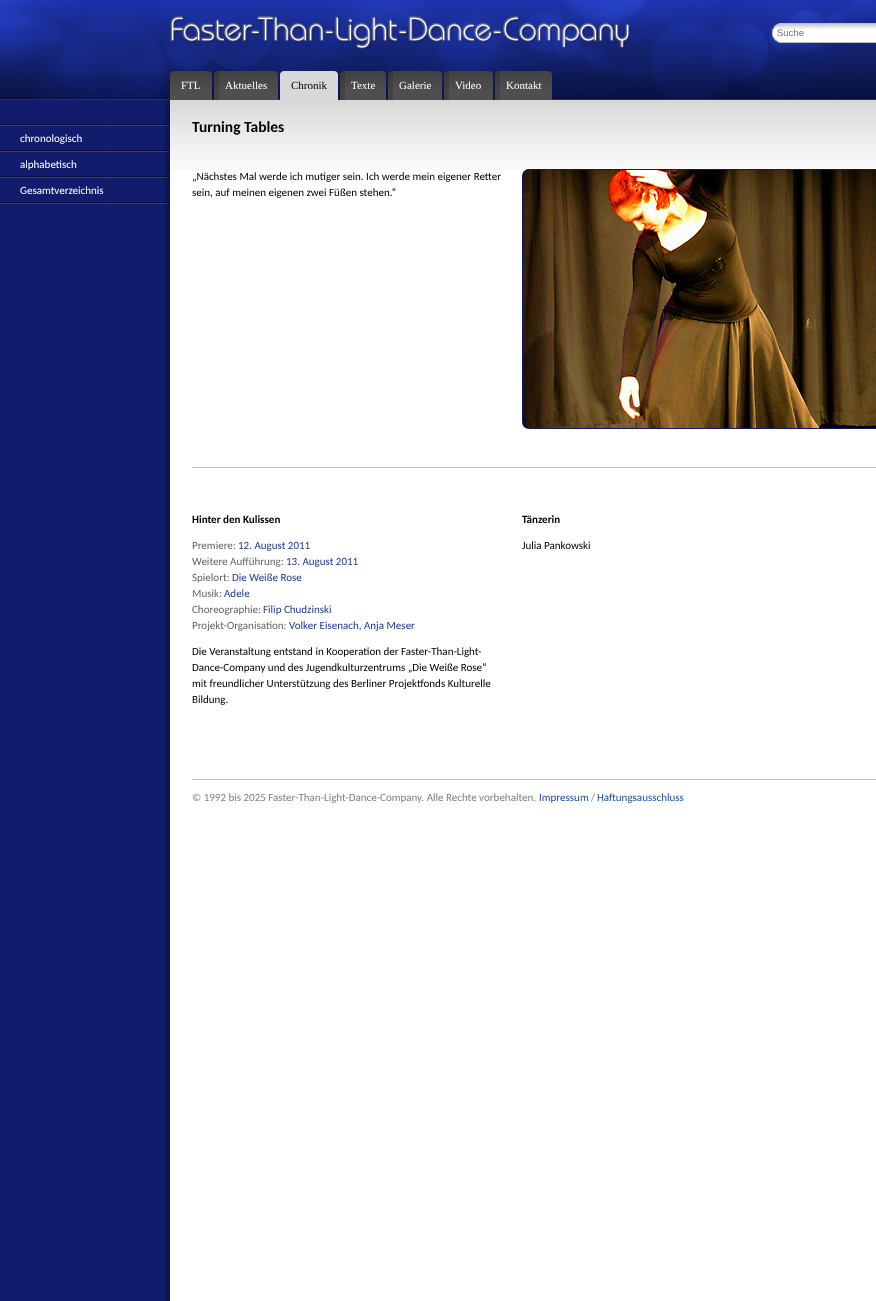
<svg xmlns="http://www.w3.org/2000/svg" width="876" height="1301">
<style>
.a{font:9.5px Liberation Sans;fill:#757575}
.b{font:11px Liberation Serif;fill:#fff}
.c{font:11px Liberation Serif;fill:#000}
.d{font:11px Carlito;fill:#fff}
.e{font:bold 15.5px Carlito;fill:#000}
.f{font:11px Carlito;fill:#000}
.g{font:bold 11px Carlito;fill:#000}
.h{font:11px Carlito;fill:#656565}
.i{font:11px Carlito;fill:#213797}
.j{font:11px Carlito;fill:#808080}
.k{font:11px Carlito;fill:#234ca9}
</style>
<rect width="100%" height="100%" fill="#121c6d"/>
<image href="1.png" x="163" y="100" width="713" height="1201"/>
<image href="2.png" x="0" y="99" width="876" height="1"/>
<image href="3.png" x="0" y="0" width="876" height="99"/>
<image href="4.png" x="170" y="15" width="461" height="35"/>
<rect fill="#fff" x="772" y="23" width="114" height="20" rx="10"/>
<image href="5.png" x="773" y="24" width="103" height="5"/>
<rect fill="none" stroke="#bdbdbd" x="772.5" y="23.5" width="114" height="19" rx="9.5"/>
<image href="6.png" x="170" y="71" width="5" height="29"/>
<image href="7.png" x="175" y="71" width="32" height="29"/>
<image href="8.png" x="207" y="71" width="5" height="29"/>
<image href="9.png" x="214" y="71" width="5" height="29"/>
<image href="10.png" x="219" y="71" width="54" height="29"/>
<image href="11.png" x="273" y="71" width="5" height="29"/>
<image href="12.png" x="280" y="71" width="5" height="29"/>
<path fill="#d8d8d8" d="M285 71h48v29H285z"/>
<image href="13.png" x="333" y="71" width="5" height="29"/>
<image href="14.png" x="340" y="71" width="5" height="29"/>
<image href="15.png" x="345" y="71" width="36" height="29"/>
<image href="16.png" x="381" y="71" width="5" height="29"/>
<image href="17.png" x="388" y="71" width="5" height="29"/>
<image href="18.png" x="393" y="71" width="44" height="29"/>
<image href="19.png" x="437" y="71" width="5" height="29"/>
<image href="20.png" x="444" y="71" width="5" height="29"/>
<image href="21.png" x="449" y="71" width="39" height="29"/>
<image href="22.png" x="488" y="71" width="5" height="29"/>
<image href="23.png" x="495" y="71" width="5" height="29"/>
<image href="24.png" x="500" y="71" width="47" height="29"/>
<image href="25.png" x="547" y="71" width="5" height="29"/>
<image href="26.png" x="0" y="124" width="170" height="2"/>
<image href="26.png" x="0" y="150" width="170" height="2"/>
<image href="26.png" x="0" y="176" width="170" height="2"/>
<image href="26.png" x="0" y="202" width="170" height="2"/>
<image href="27.png" x="170" y="100" width="706" height="70"/>
<image href="28.png" x="523" y="169" width="6" height="259"/>
<rect fill="none" stroke="#131661" x="522.5" y="169.5" width="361" height="259" rx="6.5"/>
<image href="29.png" x="523" y="170" width="6" height="258"/>
<image href="30.png" x="523" y="170" width="6" height="258"/>
<image href="31.png" x="523" y="170" width="353" height="258"/>
<path fill="#bdbdbd" d="M192 467h684v1H192z"/>
<path fill="#bdbdbd" d="M192 779h684v1H192z"/>
<text class="a" x="777" y="36">Suche</text>
<text class="b" x="181" y="89">FTL</text>
<text class="b" x="225" y="89">Aktuelles</text>
<text class="c" x="291" y="89">Chronik</text>
<text class="b" x="351" y="89">Texte</text>
<text class="b" x="399" y="89">Galerie</text>
<text class="b" x="455" y="89">Video</text>
<text class="b" x="506" y="89">Kontakt</text>
<text class="d" x="20" y="142">chronologisch</text>
<text class="d" x="20" y="168">alphabetisch</text>
<text class="d" x="20" y="194">Gesamtverzeichnis</text>
<text class="e" x="192" y="132">Turning Tables</text>
<text class="f" x="192" y="180">„Nächstes Mal werde ich mutiger sein. Ich werde mein eigener Retter</text>
<text class="f" x="192" y="196">sein, auf meinen eigenen zwei Füßen stehen.“</text>
<text class="g" x="192" y="523">Hinter den Kulissen</text>
<text class="h" x="192" y="549">Premiere:</text>
<text class="i" x="238" y="549">12. August 2011</text>
<text class="h" x="192" y="565">Weitere Aufführung:</text>
<text class="i" x="286" y="565">13. August 2011</text>
<text class="h" x="192" y="581">Spielort:</text>
<text class="i" x="232" y="581">Die Weiße Rose</text>
<text class="h" x="192" y="597">Musik:</text>
<text class="i" x="224" y="597">Adele</text>
<text class="h" x="192" y="613">Choreographie:</text>
<text class="i" x="263" y="613">Filip Chudzinski</text>
<text class="h" x="192" y="629">Projekt-Organisation:</text>
<text class="i" x="289" y="629">Volker Eisenach, Anja Meser</text>
<text class="f" x="192" y="655">Die Veranstaltung entstand in Kooperation der Faster-Than-Light-</text>
<text class="f" x="192" y="671">Dance-Company und des Jugendkulturzentrums „Die Weiße Rose“</text>
<text class="f" x="192" y="687">mit freundlicher Unterstützung des Berliner Projektfonds Kulturelle</text>
<text class="f" x="192" y="703">Bildung.</text>
<text class="g" x="522" y="523">Tänzerin</text>
<text class="f" x="522" y="549">Julia Pankowski</text>
<text class="j" x="192" y="801">© 1992 bis 2025 Faster-Than-Light-Dance-Company. Alle Rechte vorbehalten.</text>
<text class="k" x="539" y="801">Impressum</text>
<text class="j" x="591" y="801">/</text>
<text class="k" x="597" y="801">Haftungsausschluss</text>
</svg>
